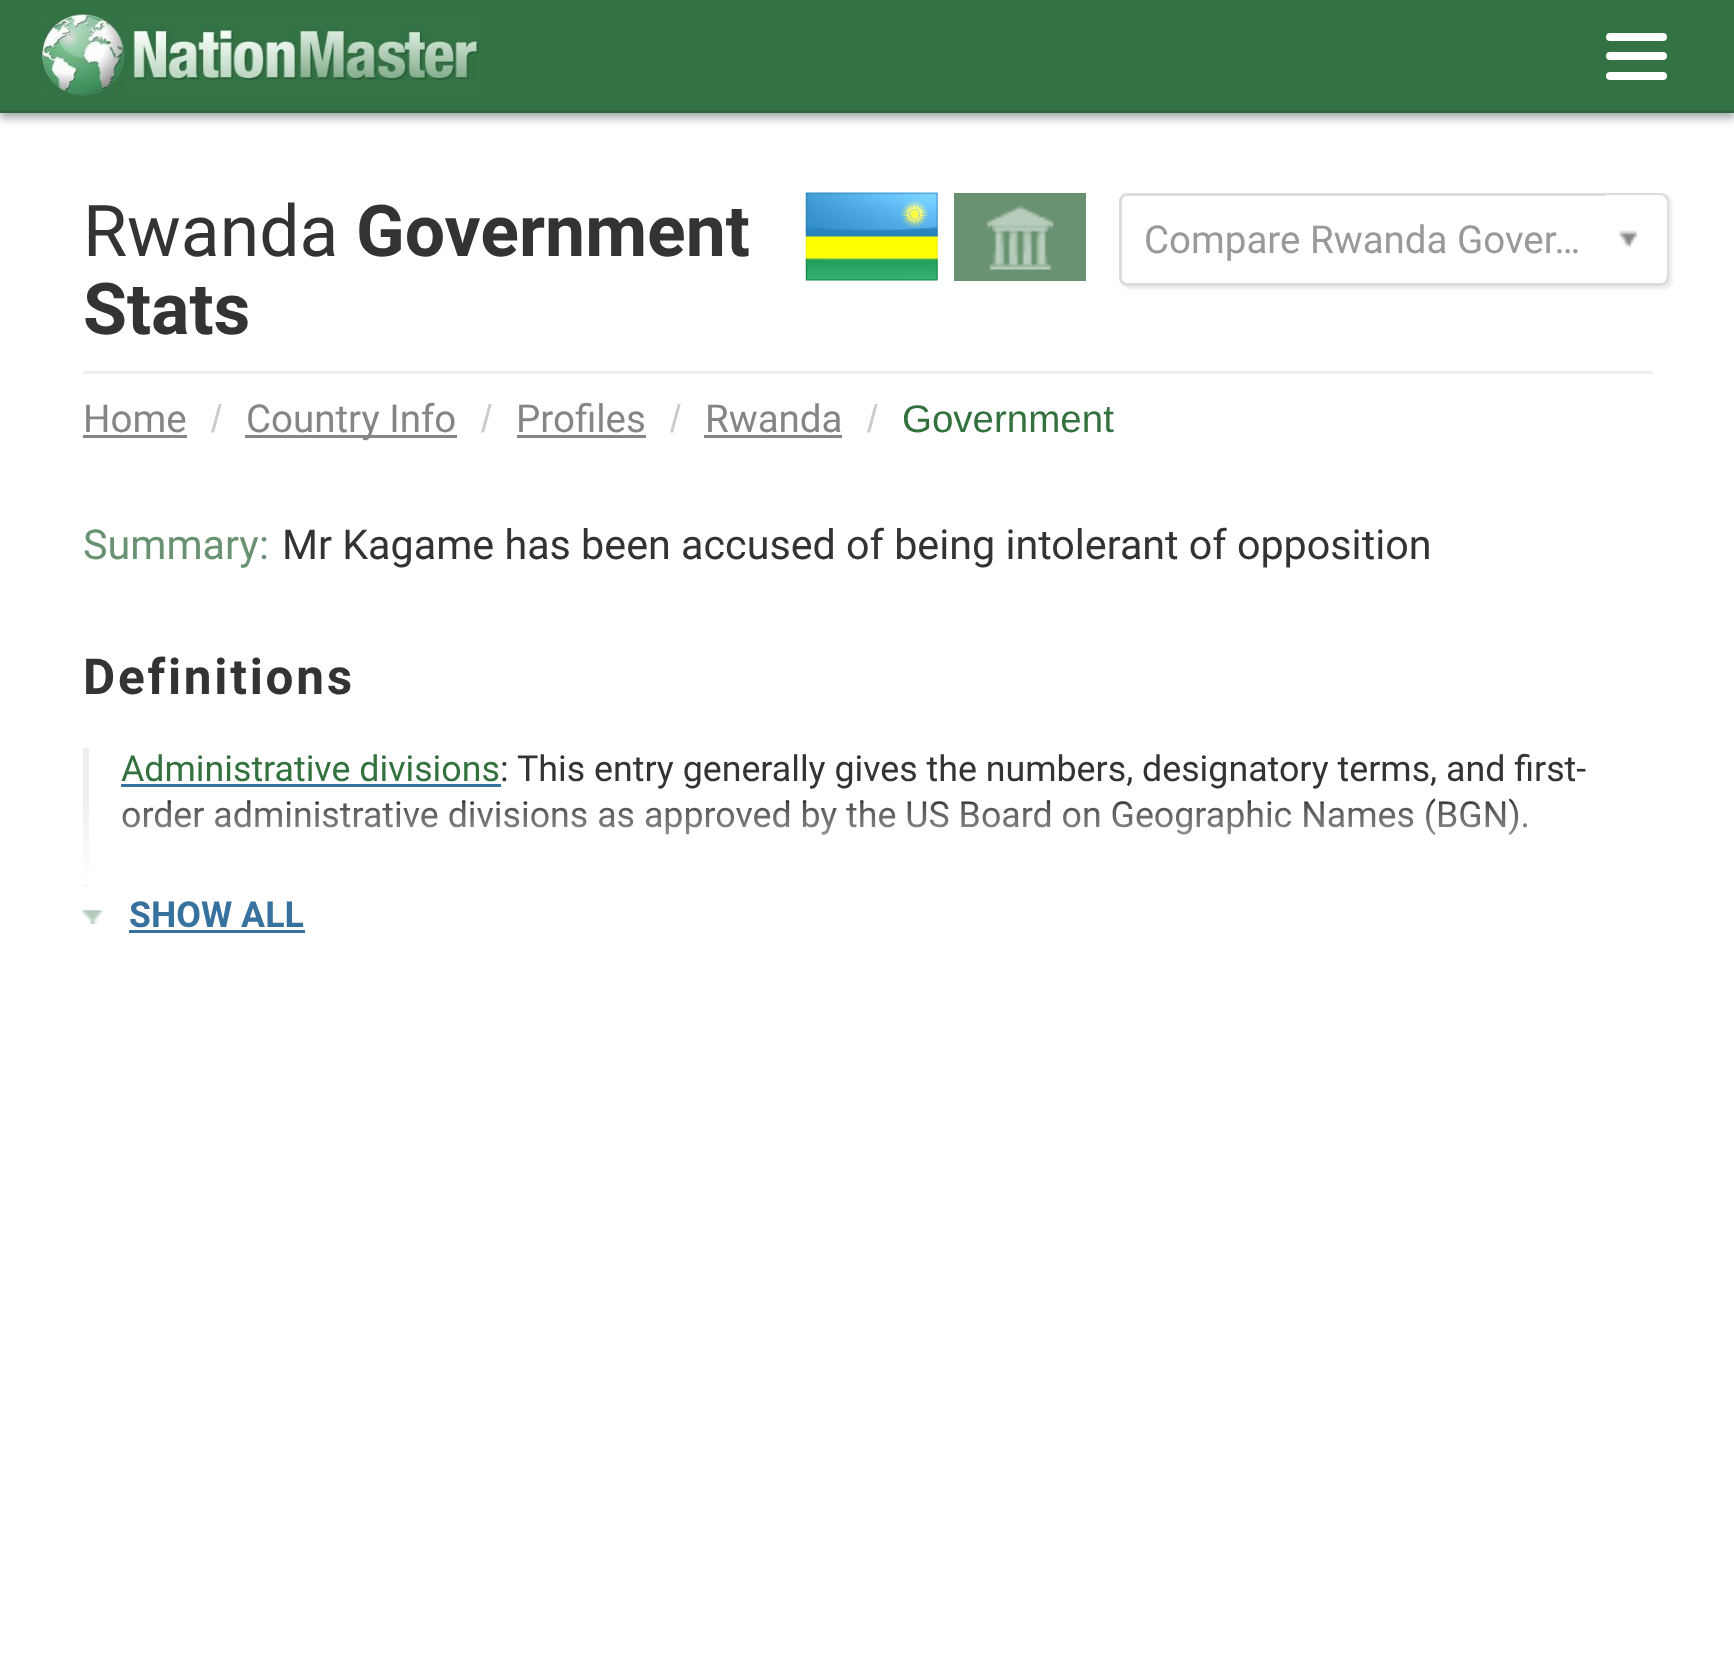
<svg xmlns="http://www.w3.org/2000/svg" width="1734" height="1661">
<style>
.a{font:71.5px Roboto;fill:#333}
.b{font:bold 71.5px Roboto;fill:#333}
.c{font:38.5px Roboto;fill:#999}
.d{font:38.5px Roboto;fill:#858585}
.e{font:38.5px Liberation Sans;fill:#ccc}
.f{font:38.5px Liberation Sans;fill:#33723f}
.g{font:41.25px Roboto;fill:#699272}
.h{font:41.25px Roboto;fill:#333}
.i{font:bold 49.5px Roboto;letter-spacing:2.75px;fill:#333}
.j{font:35.75px Roboto;fill:#33723f}
.k{font:35.75px Roboto;fill:#333}
.l{font:bold 35.75px Roboto;fill:#37729f}
</style>
<defs>
<clipPath id="clip1"><path d="M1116 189h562v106h-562zm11 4h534c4.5 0 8 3.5 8 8v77c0 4.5-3.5 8-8 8h-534c-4.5 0-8-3.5-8-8v-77c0-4.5 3.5-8 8-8z" clip-rule="evenodd"/></clipPath>
</defs>
<rect width="100%" height="100%" fill="#fff"/>
<path fill="#00000059" filter="blur(4px)" d="M0 6h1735v112H0z"/>
<path fill="#337242" d="M0 0h1734v110H0z"/>
<path fill="#2c653d" d="M0 110h1734v3H0z"/>
<image href="1.png" x="41" y="14" width="439" height="82"/>
<rect fill="#fff" x="1606" y="33" width="61" height="8" rx="4"/>
<rect fill="#fff" x="1606" y="52" width="61" height="8" rx="4"/>
<rect fill="#fff" x="1606" y="72" width="61" height="8" rx="4"/>
<path fill="#eee" d="M83 371h1570v3H83z"/>
<image href="2.png" x="805" y="192" width="133" height="89"/>
<path fill="#699272" d="M954 193h132v88H954z"/>
<image href="3.png" x="987" y="205" width="67" height="65"/>
<g clip-path="url(#clip1)">
<rect fill="#00000014" filter="blur(1.5px)" x="1122" y="195" width="550" height="94" rx="8"/>
</g>
<rect fill="none" stroke="#ddd" stroke-width="3" x="1120.5" y="194.5" width="547" height="90" rx="6.5"/>
<path fill="#fff" d="M1606 195h53c4.5 0 8 3.5 8 8v72c0 4.5-3.5 8-8 8h-53z"/>
<image href="4.png" x="1619" y="230" width="20" height="19"/>
<path fill="#858585" d="M83 435h104v3H83z"/>
<path fill="#858585" d="M245 435h212v3H245z"/>
<path fill="#858585" d="M517 435h129v3H517z"/>
<path fill="#858585" d="M704 435h138v3H704z"/>
<path fill="#eee" d="M83 748h6v138H83z"/>
<path fill="#37729f" d="M121 784h380v3H121z"/>
<image href="6.png" x="82" y="910" width="20" height="14"/>
<path fill="#37729f" d="M129 930h176v3H129z"/>
<text class="a" x="83" y="256">Rwanda</text>
<text class="b" x="356" y="256">Government</text>
<text class="b" x="83" y="334">Stats</text>
<text class="c" x="1144" y="253">Compare Rwanda Gover…</text>
<text class="d" x="83" y="432">Home</text>
<text class="e" x="211" y="432">/</text>
<text class="d" x="246" y="432">Country Info</text>
<text class="e" x="481" y="432">/</text>
<text class="d" x="516" y="432">Profiles</text>
<text class="e" x="670" y="432">/</text>
<text class="d" x="705" y="432">Rwanda</text>
<text class="e" x="867" y="432">/</text>
<text class="f" x="902" y="432">Government</text>
<text class="g" x="83" y="559">Summary:</text>
<text class="h" x="282" y="559">Mr Kagame has been accused of being intolerant of opposition</text>
<text class="i" x="83" y="694">Definitions</text>
<text class="j" x="121" y="781">Administrative divisions</text>
<text class="k" x="500" y="781">:</text>
<text class="k" x="517" y="781">This entry generally gives the numbers, designatory terms, and first-</text>
<text class="k" x="121" y="827">order administrative divisions as approved by the US Board on Geographic Names (BGN).</text>
<image href="5.png" x="83" y="803" width="1445" height="83"/>
<text class="l" x="129" y="927">SHOW ALL</text>
</svg>
